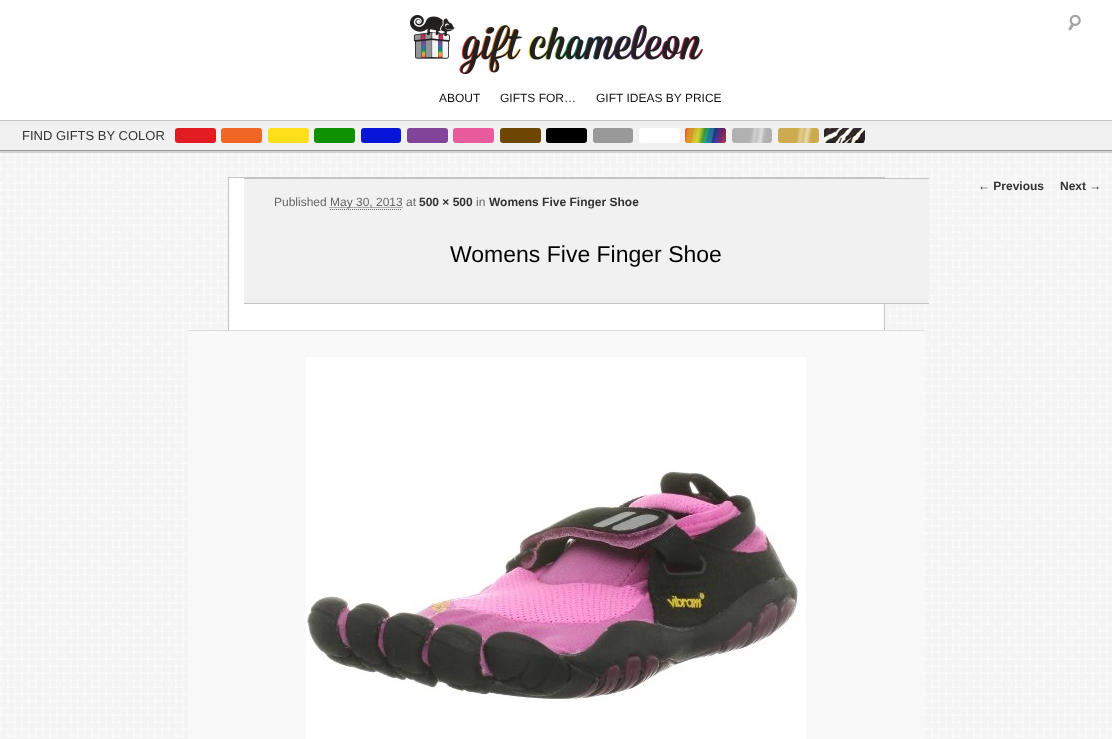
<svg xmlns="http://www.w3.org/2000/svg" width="1112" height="739">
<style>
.a{font:12px Liberation Sans;fill:#111}
.b{font:13px Liberation Sans;fill:#333}
.c{font:bold 12px Liberation Sans;fill:#333}
.d{font:12px Liberation Sans;fill:#666}
.e{font:23px Liberation Sans;fill:#000}
</style>
<rect width="100%" height="100%" fill="#fff"/>
<image href="1.png" x="0" y="152" width="1112" height="587"/>
<image href="2.png" x="410" y="15" width="293" height="59"/>
<image href="3.png" x="1068" y="14" width="13" height="17"/>
<path fill="#d2d2d2" filter="blur(0.5px)" d="M-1 120h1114v33H-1z"/>
<path fill="#f1f1f1" d="M0 121h1112v29H0z"/>
<path fill="#c4c4c4" d="M0 120h1112v1H0z"/>
<path fill="#999" d="M0 150h1112v1H0z"/>
<rect fill="#e31b22" x="175" y="128" width="41" height="15" rx="3"/>
<rect fill="#f06725" x="221" y="128" width="41" height="15" rx="3"/>
<rect fill="#ffde1a" x="268" y="128" width="41" height="15" rx="3"/>
<rect fill="#0e9100" x="314" y="128" width="41" height="15" rx="3"/>
<rect fill="#0615d7" x="361" y="128" width="40" height="15" rx="3"/>
<rect fill="#824499" x="407" y="128" width="41" height="15" rx="3"/>
<rect fill="#e95b9d" x="453" y="128" width="41" height="15" rx="3"/>
<rect fill="#6d4601" x="500" y="128" width="41" height="15" rx="3"/>
<rect fill="#000" x="546" y="128" width="41" height="15" rx="3"/>
<rect fill="#999" x="593" y="128" width="40" height="15" rx="3"/>
<rect fill="#fff" x="639" y="128" width="41" height="15" rx="3"/>
<image href="4.png" x="685" y="128" width="41" height="15"/>
<image href="5.png" x="685" y="128" width="41" height="15"/>
<image href="6.png" x="732" y="128" width="40" height="15"/>
<image href="7.png" x="778" y="128" width="41" height="15"/>
<image href="8.png" x="824" y="128" width="41" height="15"/>
<path fill="#fff" d="M229 178h655v152H229z"/>
<path fill="#c4c4c4" d="M228 177h657v1H228z"/>
<path fill="#c4c4c4" d="M884 177h1v153H884z"/>
<path fill="#c4c4c4" d="M228 177h1v153H228z"/>
<path fill="#f1f1f1" d="M244 179h685v124H244z"/>
<path fill="#c4c4c4" d="M244 178h685v1H244z"/>
<path fill="#c4c4c4" d="M244 303h685v1H244z"/>
<path fill="none" stroke="#666" stroke-dasharray="1 1" d="M330 209.5h72"/>
<path fill="none" stroke="#666" stroke-dasharray="1 1" d="M329.5 207.5h73"/>
<path fill="#f9f9f9" d="M188 331h736v408H188z"/>
<path fill="#ddd" d="M188 330h736v1H188z"/>
<image href="9.png" x="306" y="357" width="500" height="382"/>
<text class="a" x="439" y="102">ABOUT</text>
<text class="a" x="500" y="102">GIFTS FOR…</text>
<text class="a" x="596" y="102">GIFT IDEAS BY PRICE</text>
<text class="b" x="22" y="140">FIND GIFTS BY COLOR</text>
<text class="c" x="978" y="190">← Previous</text>
<text class="c" x="1060" y="190">Next →</text>
<text class="d" x="274" y="206">Published</text>
<text class="d" x="330" y="206">May 30, 2013 at</text>
<text class="c" x="419" y="206">500 × 500</text>
<text class="d" x="476" y="206">in</text>
<text class="c" x="489" y="206">Womens Five Finger Shoe</text>
<text class="e" x="450" y="262">Womens Five Finger Shoe</text>
</svg>
